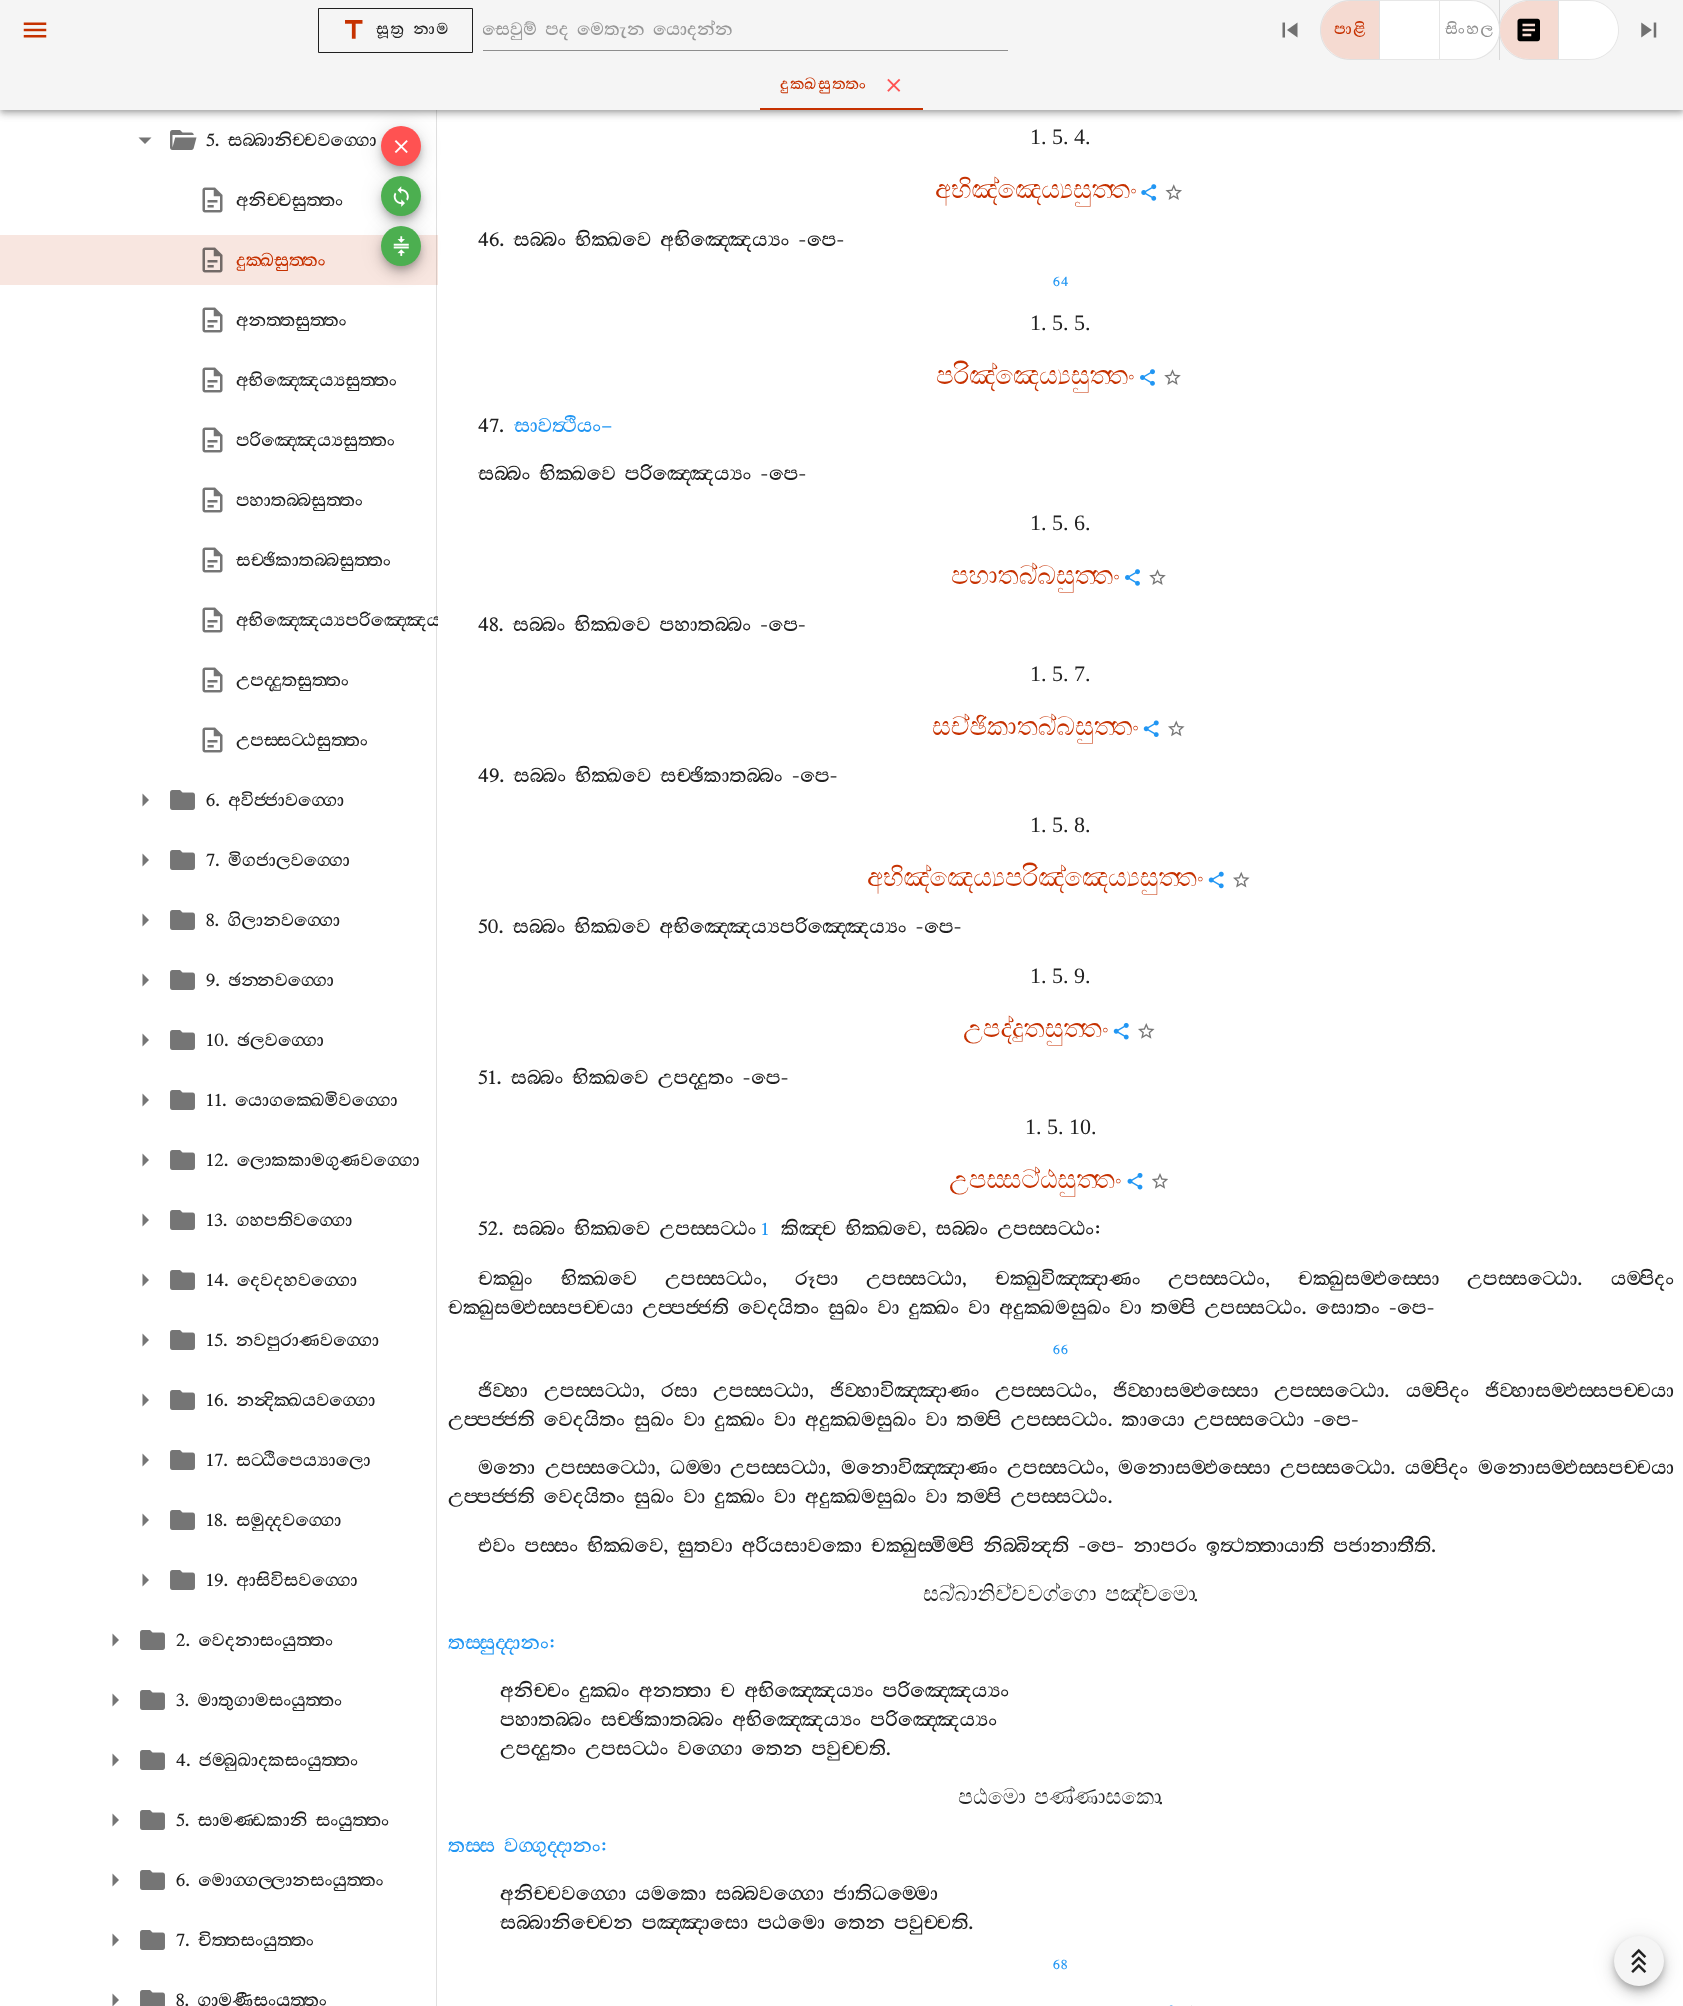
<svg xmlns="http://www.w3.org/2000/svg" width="1683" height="2006">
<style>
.a{font:300 17.5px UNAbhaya;letter-spacing:1.5px;fill:#212121}
.b{font:300 20px UNAbhaya;fill:#989898}
.c{font:300 17.5px UNAbhaya;letter-spacing:1.5px;fill:#c63100}
.d{font:300 17.5px UNAbhaya;letter-spacing:1.5px;fill:#919191}
.e{font:300 20px UNAbhaya;fill:#212121}
.f{font:300 20px UNAbhaya;fill:#c63100}
.g{font:22px Liberation Serif;fill:#212121}
.h{font:26px FreeSerif;fill:#c63100}
.i{font:300 22px UNAbhaya;fill:#212121}
.j{font:300 15px UNAbhaya;letter-spacing:1px;fill:#2196f3}
.k{font:300 22px UNAbhaya;fill:#2196f3}
.l{font:300 20px UNAbhaya;fill:#2196f3}
.m{font:22px FreeSerif;fill:#212121}
</style>
<defs>
<clipPath id="clip1"><path d="M483 19h520v22H483z"/></clipPath>
<clipPath id="clip2"><path d="M198 605h240v30H198z"/></clipPath>
</defs>
<rect width="100%" height="100%" fill="#fff"/>
<path fill="#f8e6e0" d="M0 235h438v50H0z"/>
<rect fill="#0000001f" filter="blur(11px)" x="381" y="128" width="40" height="40" rx="20"/>
<rect fill="#00000024" filter="blur(6px)" x="381" y="134" width="40" height="40" rx="20"/>
<rect fill="#00000033" filter="blur(3px)" x="383" y="131" width="37" height="38" rx="18.5"/>
<circle fill="#ff5252" cx="401" cy="146" r="20"/>
<image href="7.png" x="394" y="140" width="14" height="13"/>
<rect fill="#0000001f" filter="blur(11px)" x="381" y="178" width="40" height="40" rx="20"/>
<rect fill="#00000024" filter="blur(6px)" x="381" y="184" width="40" height="40" rx="20"/>
<rect fill="#00000033" filter="blur(3px)" x="383" y="181" width="37" height="38" rx="18.5"/>
<circle fill="#4caf50" cx="401" cy="196" r="20"/>
<image href="8.png" x="393" y="186" width="16" height="21"/>
<rect fill="#0000001f" filter="blur(11px)" x="381" y="228" width="40" height="40" rx="20"/>
<rect fill="#00000024" filter="blur(6px)" x="381" y="234" width="40" height="40" rx="20"/>
<path fill="#0000001f" d="M436 110h1v1896H436z"/>
<path fill="#0000001f" filter="blur(6px)" d="M0 1h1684v110H0z"/>
<path fill="#00000024" filter="blur(3px)" d="M0 5h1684v110H0z"/>
<path fill="#00000033" filter="blur(2.5px)" d="M1 4h1682v107H1z"/>
<path fill="#f5f5f5" d="M0 0h1683v110H0z"/>
<path fill="#d8d8d8" d="M1499 0h1v60H1499z"/>
<image href="1.png" x="23" y="22" width="24" height="16"/>
<path fill="none" stroke="#202020" d="M318.5 8.5h154v44H318.5z"/>
<image href="2.png" x="345" y="20" width="18" height="19"/>
<path fill="#8e8e8e" d="M483 50h525v1H483z"/>
<image href="3.png" x="1282" y="22" width="16" height="16"/>
<rect fill="#fff" x="1320" width="180" height="60" rx="30"/>
<path fill="none" stroke="#0000001f" d="M1350 .5h29.5v59h-29.5c-16.5 0-29.5-13-29.5-29.5c0-16.5 13-29.5 29.5-29.5z"/>
<path fill="#c631002e" d="M1350 1h29v58h-29c-16 0-29-13-29-29c0-16 13-29 29-29z"/>
<path fill="#e7e7e7" d="M1380 0h60l-1 1h-59z"/>
<path fill="#3333331f" d="M1440 0v60l-1-1v-58z"/>
<path fill="#3333331f" d="M1440 60h-60v-1h59z"/>
<path fill="#0000001a" fill-rule="evenodd" d="M1440 0h30c17 0 30 13 30 30c0 17-13 30-30 30h-30zm0 1h30c16 0 29 13 29 29c0 16-13 29-29 29h-30z"/>
<path fill="#ffffff8a" d="M1440 1h30c16 0 29 13 29 29c0 16-13 29-29 29h-30z"/>
<rect fill="#fff" x="1499" width="120" height="60" rx="30"/>
<path fill="none" stroke="#0000001f" d="M1529 .5h29.5v59h-29.5c-16.5 0-29.5-13-29.5-29.5c0-16.5 13-29.5 29.5-29.5z"/>
<path fill="#c631002e" d="M1529 1h29v58h-29c-16 0-29-13-29-29c0-16 13-29 29-29z"/>
<image href="4.png" x="1517" y="18" width="23" height="24"/>
<path fill="#0000001a" fill-rule="evenodd" d="M1559 0h30c16 0 30 13 30 30c0 17-14 30-30 30h-30zm0 1h30c16 0 29 13 29 29c0 16-13 29-29 29h-30z"/>
<path fill="#ffffff8a" d="M1559 1h30c16 0 29 13 29 29c0 16-13 29-29 29h-30z"/>
<image href="5.png" x="1641" y="22" width="16" height="16"/>
<image href="6.png" x="887" y="78" width="14" height="14"/>
<path fill="#c63100" d="M760 108h163v2H760z"/>
<rect fill="#00000033" filter="blur(3px)" x="383" y="231" width="37" height="38" rx="18.5"/>
<circle fill="#4caf50" cx="401" cy="246" r="20"/>
<image href="9.png" x="393" y="236" width="16" height="20"/>
<path fill="#757575" d="M138.5 137.5l6.5 6.5l6.5-6.5z"/>
<image href="10.png" x="170" y="130" width="27" height="20"/>
<image href="11.png" x="202" y="187" width="21" height="26"/>
<image href="12.png" x="202" y="247" width="21" height="26"/>
<image href="11.png" x="202" y="307" width="21" height="26"/>
<image href="11.png" x="202" y="367" width="21" height="26"/>
<image href="11.png" x="202" y="427" width="21" height="26"/>
<image href="11.png" x="202" y="487" width="21" height="26"/>
<image href="11.png" x="202" y="547" width="21" height="26"/>
<image href="11.png" x="202" y="607" width="21" height="26"/>
<image href="11.png" x="202" y="667" width="21" height="26"/>
<image href="11.png" x="202" y="727" width="21" height="26"/>
<path fill="#757575" d="M142.5 806.5l6.5-6.5l-6.5-6.5z"/>
<image href="13.png" x="170" y="790" width="25" height="20"/>
<path fill="#757575" d="M142.5 866.5l6.5-6.5l-6.5-6.5z"/>
<image href="13.png" x="170" y="850" width="25" height="20"/>
<path fill="#757575" d="M142.5 926.5l6.5-6.5l-6.5-6.5z"/>
<image href="13.png" x="170" y="910" width="25" height="20"/>
<path fill="#757575" d="M142.5 986.5l6.5-6.5l-6.5-6.5z"/>
<image href="13.png" x="170" y="970" width="25" height="20"/>
<path fill="#757575" d="M142.5 1046.5l6.5-6.5l-6.5-6.5z"/>
<image href="13.png" x="170" y="1030" width="25" height="20"/>
<path fill="#757575" d="M142.5 1106.5l6.5-6.5l-6.5-6.5z"/>
<image href="13.png" x="170" y="1090" width="25" height="20"/>
<path fill="#757575" d="M142.5 1166.5l6.5-6.5l-6.5-6.5z"/>
<image href="13.png" x="170" y="1150" width="25" height="20"/>
<path fill="#757575" d="M142.5 1226.5l6.5-6.5l-6.5-6.5z"/>
<image href="13.png" x="170" y="1210" width="25" height="20"/>
<path fill="#757575" d="M142.5 1286.5l6.5-6.5l-6.5-6.5z"/>
<image href="13.png" x="170" y="1270" width="25" height="20"/>
<path fill="#757575" d="M142.5 1346.5l6.5-6.5l-6.5-6.5z"/>
<image href="13.png" x="170" y="1330" width="25" height="20"/>
<path fill="#757575" d="M142.5 1406.5l6.5-6.5l-6.5-6.5z"/>
<image href="13.png" x="170" y="1390" width="25" height="20"/>
<path fill="#757575" d="M142.5 1466.5l6.5-6.5l-6.5-6.5z"/>
<image href="13.png" x="170" y="1450" width="25" height="20"/>
<path fill="#757575" d="M142.5 1526.5l6.5-6.5l-6.5-6.5z"/>
<image href="13.png" x="170" y="1510" width="25" height="20"/>
<path fill="#757575" d="M142.5 1586.5l6.5-6.5l-6.5-6.5z"/>
<image href="13.png" x="170" y="1570" width="25" height="20"/>
<path fill="#757575" d="M112.5 1646.5l6.5-6.5l-6.5-6.5z"/>
<image href="13.png" x="140" y="1630" width="25" height="20"/>
<path fill="#757575" d="M112.5 1706.5l6.5-6.5l-6.5-6.5z"/>
<image href="13.png" x="140" y="1690" width="25" height="20"/>
<path fill="#757575" d="M112.5 1766.5l6.5-6.5l-6.5-6.5z"/>
<image href="13.png" x="140" y="1750" width="25" height="20"/>
<path fill="#757575" d="M112.5 1826.5l6.5-6.5l-6.5-6.5z"/>
<image href="13.png" x="140" y="1810" width="25" height="20"/>
<path fill="#757575" d="M112.5 1886.5l6.5-6.5l-6.5-6.5z"/>
<image href="13.png" x="140" y="1870" width="25" height="20"/>
<path fill="#757575" d="M112.5 1946.5l6.5-6.5l-6.5-6.5z"/>
<image href="13.png" x="140" y="1930" width="25" height="20"/>
<path fill="#757575" d="M112.5 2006.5l6.5-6.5l-6.5-6.5z"/>
<image href="14.png" x="140" y="1990" width="25" height="16"/>
<image href="15.png" x="1141" y="184" width="16" height="17"/>
<image href="16.png" x="1165" y="184" width="17" height="16"/>
<image href="17.png" x="1140" y="369" width="15" height="17"/>
<image href="18.png" x="1164" y="369" width="17" height="16"/>
<image href="17.png" x="1125" y="569" width="15" height="17"/>
<image href="18.png" x="1149" y="569" width="17" height="16"/>
<image href="19.png" x="1143" y="720" width="16" height="17"/>
<image href="20.png" x="1168" y="720" width="17" height="17"/>
<image href="21.png" x="1208" y="871" width="16" height="18"/>
<image href="22.png" x="1233" y="871" width="17" height="17"/>
<image href="23.png" x="1113" y="1022" width="16" height="18"/>
<image href="24.png" x="1138" y="1023" width="17" height="16"/>
<image href="25.png" x="1127" y="1173" width="16" height="17"/>
<image href="26.png" x="1152" y="1173" width="16" height="16"/>
<image href="27.png" x="1169" y="2005" width="4" height="1"/>
<path fill="#ededed" d="M1191 2005h1v1H1191z"/>
<rect fill="#0000001f" filter="blur(11px)" x="1614" y="1938" width="50" height="50" rx="25"/>
<rect fill="#00000024" filter="blur(6px)" x="1614" y="1944" width="50" height="50" rx="25"/>
<rect fill="#00000033" filter="blur(3px)" x="1615" y="1941" width="48" height="48" rx="24"/>
<circle fill="#f5f5f5" cx="1639" cy="1961" r="25"/>
<image href="28.png" x="1631" y="1948" width="16" height="25"/>
<text class="a" x="376" y="34" word-spacing="-1">සූත්‍ර නාම</text>
<g clip-path="url(#clip1)">
<text class="b" x="482" y="35">සෙවුම් පද මෙතැන යොදන්න</text>
</g>
<text class="c" x="1334" y="34">පාළි</text>
<text class="d" x="1445" y="34">සිංහල</text>
<text class="c" x="780" y="89">දුක‍්ඛසුත‍්තං</text>
<text class="e" x="206" y="146">5. සබ‍්බානිච‍්චවග‍්ගො</text>
<text class="e" x="236" y="206">අනිච‍්චසුත‍්තං</text>
<text class="f" x="236" y="266">දුක‍්ඛසුත‍්තං</text>
<text class="e" x="236" y="326">අනත‍්තසුත‍්තං</text>
<text class="e" x="236" y="386">අභිඤ‍්ඤෙය්‍යසුත‍්තං</text>
<text class="e" x="236" y="446">පරිඤ‍්ඤෙය්‍යසුත‍්තං</text>
<text class="e" x="236" y="506">පහාතබ‍්බසුත‍්තං</text>
<text class="e" x="236" y="566">සච‍්ඡිකාතබ‍්බසුත‍්තං</text>
<g clip-path="url(#clip2)">
<text class="e" x="236" y="626">අභිඤ‍්ඤෙය්‍යපරිඤ‍්ඤෙය්‍ය</text>
</g>
<text class="e" x="236" y="686">උපද‍්දුතසුත‍්තං</text>
<text class="e" x="236" y="746">උපස‍්සට‍්ඨසුත‍්තං</text>
<text class="e" x="206" y="806">6. අවිජ‍්ජාවග‍්ගො</text>
<text class="e" x="206" y="866">7. මිගජාලවග‍්ගො</text>
<text class="e" x="206" y="926">8. ගිලානවග‍්ගො</text>
<text class="e" x="206" y="986">9. ඡන‍්නවග‍්ගො</text>
<text class="e" x="206" y="1046">10. ඡලවග‍්ගො</text>
<text class="e" x="206" y="1106">11. යොගක‍්ඛෙමිවග‍්ගො</text>
<text class="e" x="206" y="1166">12. ලොකකාමගුණවග‍්ගො</text>
<text class="e" x="206" y="1226">13. ගහපතිවග‍්ගො</text>
<text class="e" x="206" y="1286">14. දෙවදහවග‍්ගො</text>
<text class="e" x="206" y="1346">15. නවපුරාණවග‍්ගො</text>
<text class="e" x="206" y="1406">16. නන්‍දික‍්ඛයවග‍්ගො</text>
<text class="e" x="206" y="1466">17. සට‍්ඨිපෙය්‍යාලො</text>
<text class="e" x="206" y="1526">18. සමුද‍්දවග‍්ගො</text>
<text class="e" x="206" y="1586">19. ආසිවිසවග‍්ගො</text>
<text class="e" x="176" y="1646">2. වෙදනාසංයුත‍්තං</text>
<text class="e" x="176" y="1706">3. මාතුගාමසංයුත‍්තං</text>
<text class="e" x="176" y="1766">4. ජම‍්බුඛාදකසංයුත‍්තං</text>
<text class="e" x="176" y="1826">5. සාමණ‍්ඩකානි සංයුත‍්තං</text>
<text class="e" x="176" y="1886">6. මොග‍්ගල‍්ලානසංයුත‍්තං</text>
<text class="e" x="176" y="1946">7. චිත‍්තසංයුත‍්තං</text>
<text class="e" x="176" y="2006">8. ගාමණීසංයුත‍්තං</text>
<text class="g" x="1030" y="144">1. 5. 4.</text>
<text class="h" x="935" y="198">අභිඤ‍්ඤෙය්‍යසුත‍්තං</text>
<text class="i" x="478" y="246">46. සබ‍්බං භික‍්ඛවෙ අභිඤ‍්ඤෙය්‍යං -පෙ-</text>
<text class="j" x="1053" y="286">64</text>
<text class="g" x="1030" y="330">1. 5. 5.</text>
<text class="h" x="936" y="384">පරිඤ‍්ඤෙය්‍යසුත‍්තං</text>
<text class="i" x="478" y="432">47.</text>
<text class="k" x="514" y="432">සාවත්‍ථියං–</text>
<text class="i" x="478" y="480">සබ‍්බං භික‍්ඛවෙ පරිඤ‍්ඤෙය්‍යං -පෙ-</text>
<text class="g" x="1030" y="530">1. 5. 6.</text>
<text class="h" x="951" y="584">පහාතබ‍්බසුත‍්තං</text>
<text class="i" x="478" y="631">48. සබ‍්බං භික‍්ඛවෙ පහාතබ‍්බං -පෙ-</text>
<text class="g" x="1030" y="681">1. 5. 7.</text>
<text class="h" x="932" y="735">සච‍්ඡිකාතබ‍්බසුත‍්තං</text>
<text class="i" x="478" y="782">49. සබ‍්බං භික‍්ඛවෙ සච‍්ඡිකාතබ‍්බං -පෙ-</text>
<text class="g" x="1030" y="832">1. 5. 8.</text>
<text class="h" x="867" y="886">අභිඤ‍්ඤෙය්‍යපරිඤ‍්ඤෙය්‍යසුත‍්තං</text>
<text class="i" x="478" y="933">50. සබ‍්බං භික‍්ඛවෙ අභිඤ‍්ඤෙය්‍යපරිඤ‍්ඤෙය්‍යං -පෙ-</text>
<text class="g" x="1030" y="983">1. 5. 9.</text>
<text class="h" x="963" y="1037">උපද‍්දුතසුත‍්තං</text>
<text class="i" x="478" y="1084">51. සබ‍්බං භික‍්ඛවෙ උපද‍්දුතං -පෙ-</text>
<text class="g" x="1025" y="1134">1. 5. 10.</text>
<text class="h" x="949" y="1188">උපස‍්සට‍්ඨසුත‍්තං</text>
<text class="i" x="478" y="1235">52. සබ‍්බං භික‍්ඛවෙ උපස‍්සට‍්ඨං</text>
<text class="l" x="761" y="1235">1</text>
<text class="i" x="781" y="1235">කිඤ‍්ච භික‍්ඛවෙ, සබ‍්බං උපස‍්සට‍්ඨං:</text>
<text class="i" x="478" y="1285">චක‍්ඛුං</text>
<text class="i" x="561" y="1285">භික‍්ඛවෙ</text>
<text class="i" x="665" y="1285">උපස‍්සට‍්ඨං,</text>
<text class="i" x="795" y="1285">රූපා</text>
<text class="i" x="866" y="1285">උපස‍්සට‍්ඨා,</text>
<text class="i" x="995" y="1285">චක‍්ඛුවිඤ‍්ඤාණං</text>
<text class="i" x="1168" y="1285">උපස‍්සට‍්ඨං,</text>
<text class="i" x="1298" y="1285">චක‍්ඛුසම‍්ඵස‍්සො</text>
<text class="i" x="1467" y="1285">උපස‍්සට‍්ඨො.</text>
<text class="i" x="1611" y="1285">යම‍්පිදං</text>
<text class="i" x="448" y="1314">චක‍්ඛුසම‍්ඵස‍්සපච‍්චයා උප‍්පජ‍්ජති වෙදයිතං සුඛං වා දුක‍්ඛං වා අදුක‍්ඛමසුඛං වා තම‍්පි උපස‍්සට‍්ඨං. සොතං -පෙ-</text>
<text class="j" x="1053" y="1354">66</text>
<text class="i" x="478" y="1397">ජිව‍්හා</text>
<text class="i" x="544" y="1397">උපස‍්සට‍්ඨා,</text>
<text class="i" x="661" y="1397">රසා</text>
<text class="i" x="713" y="1397">උපස‍්සට‍්ඨා,</text>
<text class="i" x="830" y="1397">ජිව‍්හාවිඤ‍්ඤාණං</text>
<text class="i" x="995" y="1397">උපස‍්සට‍්ඨං,</text>
<text class="i" x="1113" y="1397">ජිව‍්හාසම‍්ඵස‍්සො</text>
<text class="i" x="1274" y="1397">උපස‍්සට‍්ඨො.</text>
<text class="i" x="1406" y="1397">යම‍්පිදං</text>
<text class="i" x="1485" y="1397">ජිව‍්හාසම‍්ඵස‍්සපච‍්චයා</text>
<text class="i" x="448" y="1426">උප‍්පජ‍්ජති වෙදයිතං සුඛං වා දුක‍්ඛං වා අදුක‍්ඛමසුඛං වා තම‍්පි උපස‍්සට‍්ඨං. කායො උපස‍්සට‍්ඨො -පෙ-</text>
<text class="i" x="478" y="1474">මනො</text>
<text class="i" x="545" y="1474">උපස‍්සට‍්ඨො,</text>
<text class="i" x="670" y="1474">ධම‍්මා</text>
<text class="i" x="730" y="1474">උපස‍්සට‍්ඨා,</text>
<text class="i" x="841" y="1474">මනොවිඤ‍්ඤාණං</text>
<text class="i" x="1007" y="1474">උපස‍්සට‍්ඨං,</text>
<text class="i" x="1118" y="1474">මනොසම‍්ඵස‍්සො</text>
<text class="i" x="1280" y="1474">උපස‍්සට‍්ඨො.</text>
<text class="i" x="1405" y="1474">යම‍්පිදං</text>
<text class="i" x="1478" y="1474">මනොසම‍්ඵස‍්සපච‍්චයා</text>
<text class="i" x="448" y="1503">උප‍්පජ‍්ජති වෙදයිතං සුඛං වා දුක‍්ඛං වා අදුක‍්ඛමසුඛං වා තම‍්පි උපස‍්සට‍්ඨං.</text>
<text class="i" x="478" y="1552">එවං පස‍්සං භික‍්ඛවෙ, සුතවා අරියසාවකො චක‍්ඛුස‍්මිම‍්පි නිබ‍්බින්‍දති -පෙ- නාපරං ඉත්‍ථත‍්තායාති පජානාතීති.</text>
<text class="m" x="923" y="1601">සබ‍්බානිච‍්චවග‍්ගො</text>
<text class="m" x="1105" y="1601">පඤ‍්චමො</text>
<text class="g" x="1193" y="1601">.</text>
<text class="k" x="448" y="1649">තස‍්සුද‍්දානං:</text>
<text class="i" x="500" y="1697">අනිච‍්චං දුක‍්ඛං අනත‍්තා ච අභිඤ‍්ඤෙය්‍යං පරිඤ‍්ඤෙය්‍යං</text>
<text class="i" x="500" y="1726">පහාතබ‍්බං සච‍්ඡිකාතබ‍්බං අභිඤ‍්ඤෙය්‍යං පරිඤ‍්ඤෙය්‍යං</text>
<text class="i" x="500" y="1755">උපද‍්දුතං උපසට‍්ඨං වග‍්ගො තෙන පවුච‍්චති.</text>
<text class="m" x="958" y="1804">පඨමො</text>
<text class="m" x="1034" y="1804">පණ‍්ණාසකො</text>
<text class="g" x="1158" y="1804">.</text>
<text class="k" x="448" y="1852">තස‍්ස වග‍්ගුද‍්දානං:</text>
<text class="i" x="500" y="1900">අනිච‍්චවග‍්ගො යමකො සබ‍්බවග‍්ගො ජාතිධම‍්මො</text>
<text class="i" x="500" y="1929">සබ‍්බානිච‍්චෙන පඤ‍්ඤාසො පඨමො තෙන පවුච‍්චති.</text>
<text class="j" x="1053" y="1969">68</text>
</svg>
